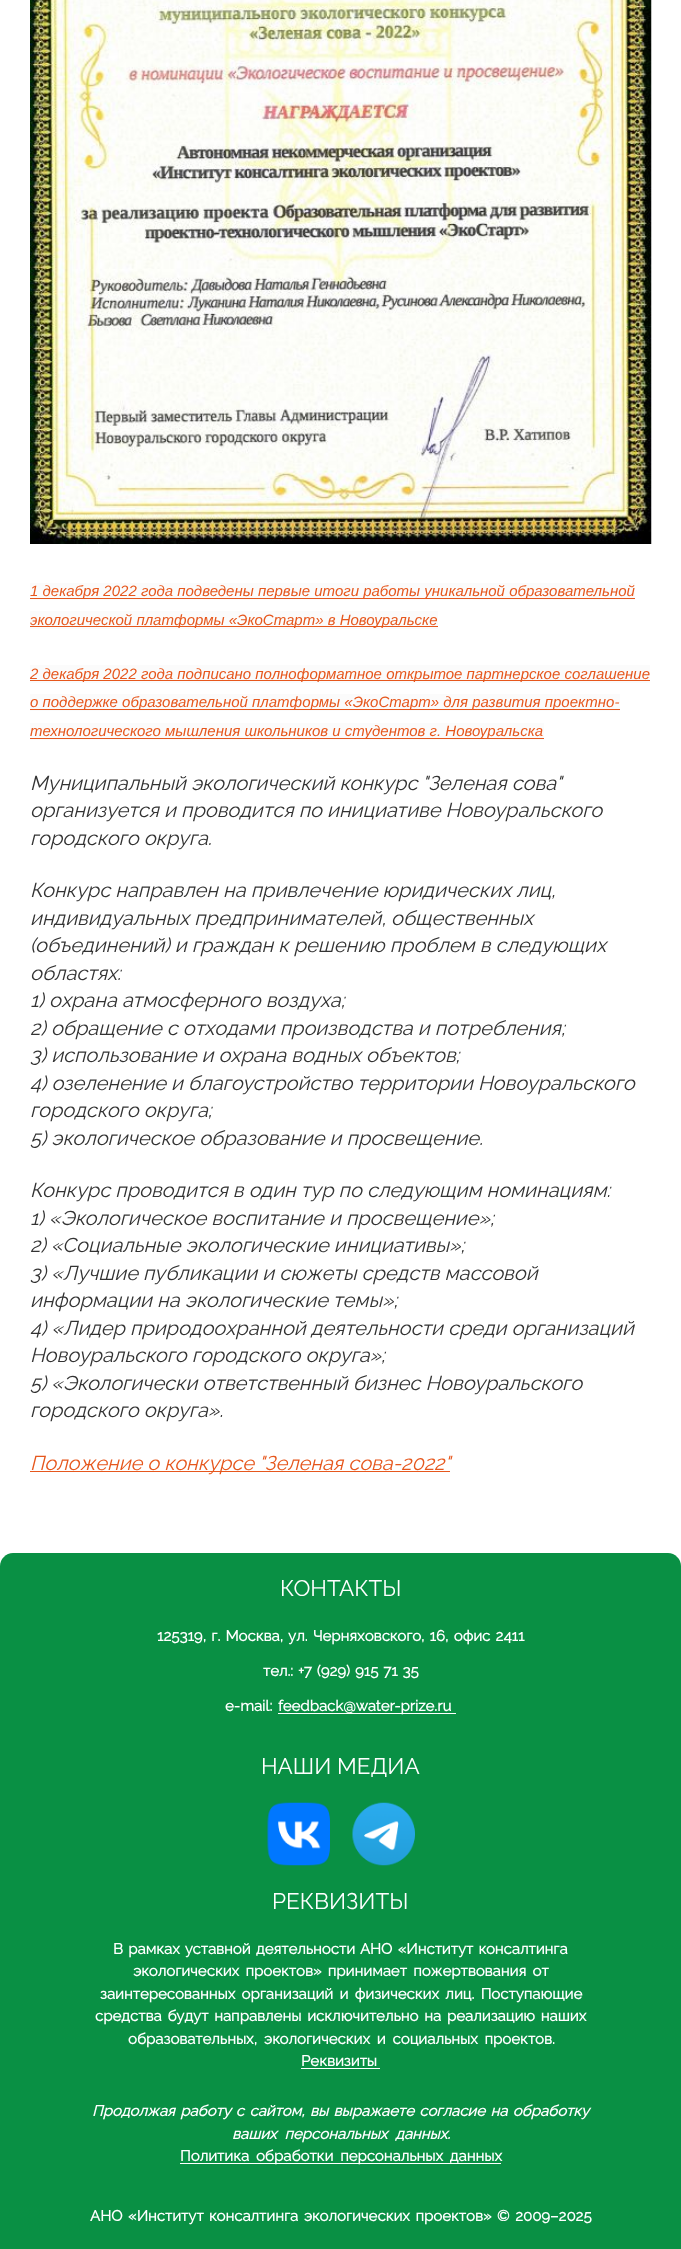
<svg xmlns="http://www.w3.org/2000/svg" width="681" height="2249">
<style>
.a{font:italic 15px Liberation Sans;fill:#e6571d}
.b{font:italic 20px Raleway;fill:#333}
.c{font:italic 20px Raleway;fill:#e6571d}
.d{font:22.5px Raleway;fill:#fff}
.e{font:bold 15px Raleway;fill:#fff}
.f{font:italic bold 15px Raleway;fill:#fff}
</style>
<rect width="100%" height="100%" fill="#fff"/>
<image href="1.png" x="30" y="0" width="622" height="544"/>
<path fill="#fbfbfb" d="M30 583h605v17H30z"/>
<path fill="#e6571d" d="M30 598h605v1H30z"/>
<path fill="#fbfbfb" d="M30 611h408v18H30z"/>
<path fill="#e6571d" d="M30 626h408v1H30z"/>
<path fill="#fbfbfb" d="M30 665h620v18H30z"/>
<path fill="#e6571d" d="M30 680h620v1H30z"/>
<path fill="#fbfbfb" d="M30 694h590v17H30z"/>
<path fill="#e6571d" d="M30 709h590v1H30z"/>
<path fill="#fbfbfb" d="M30 723h514v17H30z"/>
<path fill="#e6571d" d="M30 738h514v1H30z"/>
<path fill="#e6571d" d="M30 1471h420v1H30z"/>
<path fill="#099044" d="M13 1553h655c7 0 13 6 13 13v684h-681v-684c0-7 6-13 13-13z"/>
<path fill="#fff" d="M278 1713h178v1H278z"/>
<image href="2.png" x="267" y="1802" width="63" height="64"/>
<image href="3.png" x="352" y="1802" width="63" height="64"/>
<path fill="#fff" d="M301 2068h79v1H301z"/>
<path fill="#fff" d="M180 2163h321v1H180z"/>
<text class="a" x="30" y="596">1 декабря 2022 года подведены первые итоги работы уникальной образовательной</text>
<text class="a" x="30" y="625">экологической платформы «ЭкоСтарт» в Новоуральске</text>
<text class="a" x="30" y="679">2 декабря 2022 года подписано полноформатное открытое партнерское соглашение</text>
<text class="a" x="30" y="707">о поддержке образовательной платформы «ЭкоСтарт» для развития проектно-</text>
<text class="a" x="30" y="736">технологического мышления школьников и студентов г. Новоуральска</text>
<text class="b" x="30" y="790">Муниципальный экологический конкурс "Зеленая сова"</text>
<text class="b" x="30" y="817">организуется и проводится по инициативе Новоуральского</text>
<text class="b" x="30" y="845">городского округа.</text>
<text class="b" x="30" y="897">Конкурс направлен на привлечение юридических лиц,</text>
<text class="b" x="30" y="925">индивидуальных предпринимателей, общественных</text>
<text class="b" x="30" y="952">(объединений) и граждан к решению проблем в следующих</text>
<text class="b" x="30" y="980">областях:</text>
<text class="b" x="30" y="1007">1) охрана атмосферного воздуха;</text>
<text class="b" x="30" y="1035">2) обращение с отходами производства и потребления;</text>
<text class="b" x="30" y="1062">3) использование и охрана водных объектов;</text>
<text class="b" x="30" y="1090">4) озеленение и благоустройство территории Новоуральского</text>
<text class="b" x="30" y="1117">городского округа;</text>
<text class="b" x="30" y="1145">5) экологическое образование и просвещение.</text>
<text class="b" x="30" y="1197">Конкурс проводится в один тур по следующим номинациям:</text>
<text class="b" x="30" y="1225">1) «Экологическое воспитание и просвещение»;</text>
<text class="b" x="30" y="1252">2) «Социальные экологические инициативы»;</text>
<text class="b" x="30" y="1280">3) «Лучшие публикации и сюжеты средств массовой</text>
<text class="b" x="30" y="1307">информации на экологические темы»;</text>
<text class="b" x="30" y="1335">4) «Лидер природоохранной деятельности среди организаций</text>
<text class="b" x="30" y="1362">Новоуральского городского округа»;</text>
<text class="b" x="30" y="1390">5) «Экологически ответственный бизнес Новоуральского</text>
<text class="b" x="30" y="1417">городского округа».</text>
<text class="c" x="30" y="1470">Положение о конкурсе "Зеленая сова-2022"</text>
<text class="d" x="280" y="1596">КОНТАКТЫ</text>
<text class="e" x="157" y="1641" word-spacing="1.5">125319, г. Москва, ул. Черняховского, 16, офис 2411</text>
<text class="e" x="263" y="1676" word-spacing="1">тел.: +7 (929) 915 71 35</text>
<text class="e" x="225" y="1711">e-mail:</text>
<text class="e" x="278" y="1711">feedback@water-prize.ru</text>
<text class="d" x="261" y="1774">НАШИ МЕДИА</text>
<text class="d" x="272" y="1909">РЕКВИЗИТЫ</text>
<text class="e" x="113" y="1954" word-spacing="1.5">В рамках уставной деятельности АНО «Институт консалтинга</text>
<text class="e" x="133" y="1976" word-spacing="2.5">экологических проектов» принимает пожертвования от</text>
<text class="e" x="100" y="1999" word-spacing="2.5">заинтересованных организаций и физических лиц. Поступающие</text>
<text class="e" x="95" y="2021" word-spacing="2">средства будут направлены исключительно на реализацию наших</text>
<text class="e" x="128" y="2044" word-spacing="3">образовательных, экологических и социальных проектов.</text>
<text class="e" x="301" y="2066">Реквизиты</text>
<text class="f" x="92" y="2116" word-spacing="1.5">Продолжая работу с сайтом, вы выражаете согласие на обработку</text>
<text class="f" x="232" y="2139" word-spacing="4">ваших персональных данных.</text>
<text class="e" x="180" y="2161" word-spacing="3">Политика обработки персональных данных</text>
<text class="e" x="90" y="2221" word-spacing="1.75">АНО «Институт консалтинга экологических проектов» © 2009–2025</text>
</svg>
